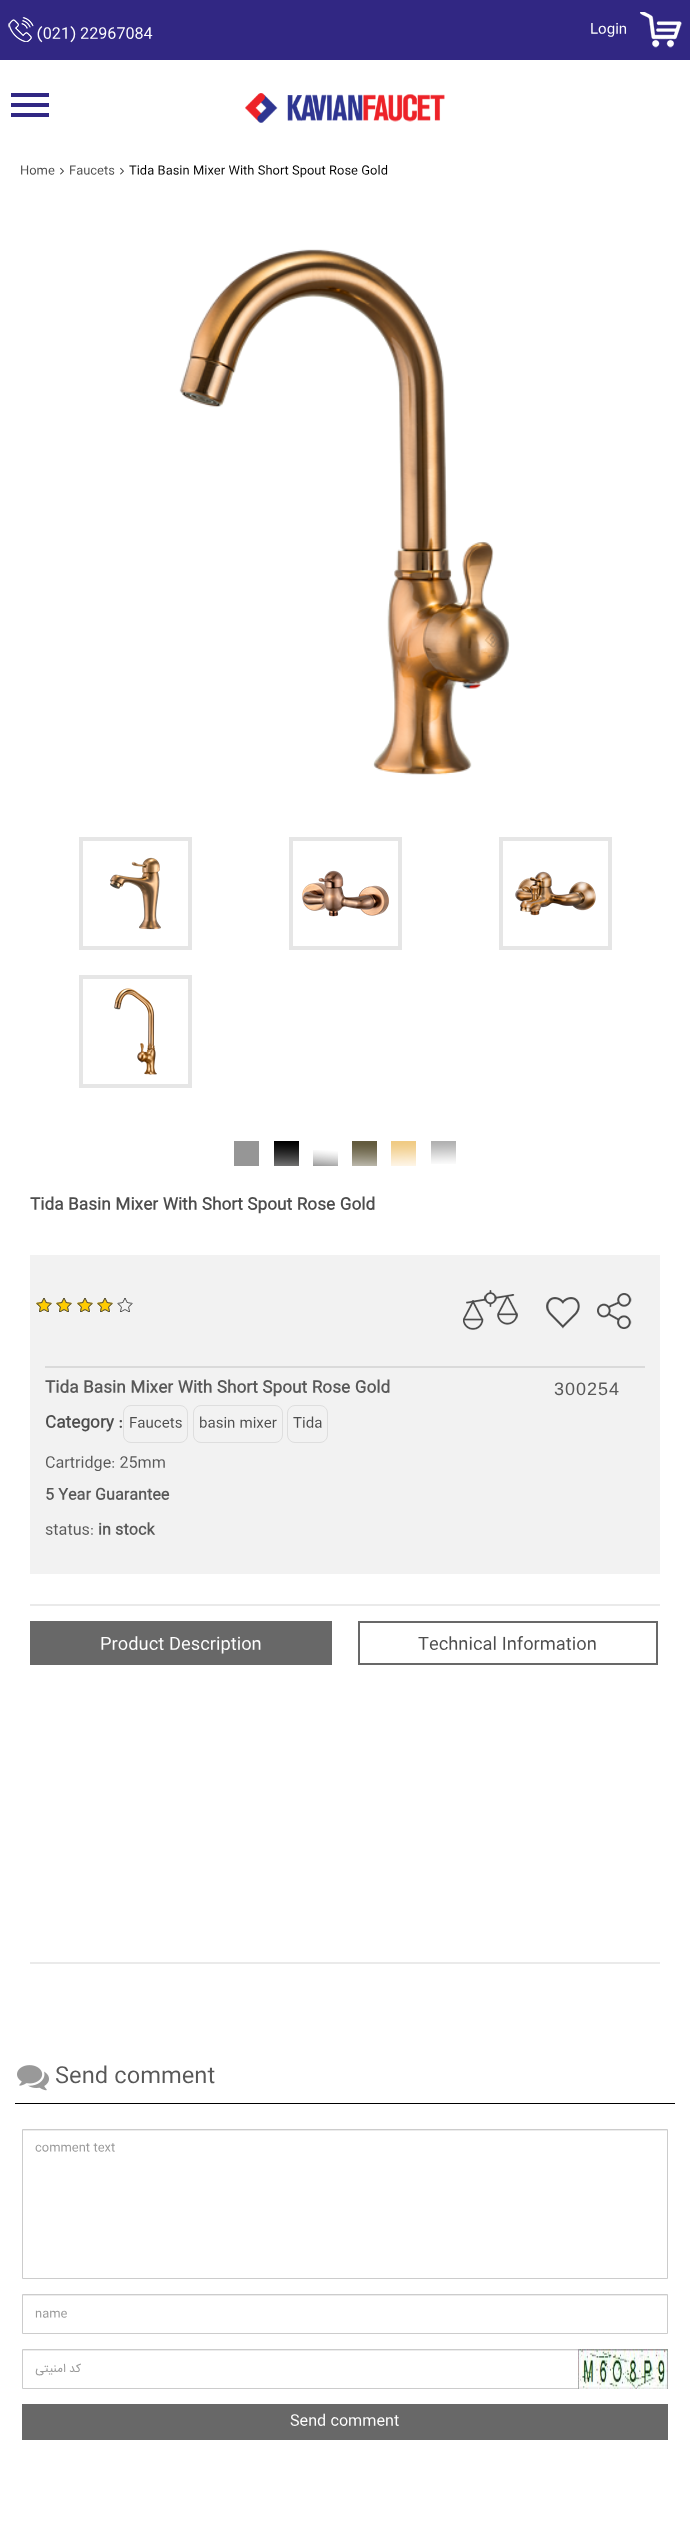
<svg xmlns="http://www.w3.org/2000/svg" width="690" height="2521">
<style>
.a{font:15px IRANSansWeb;fill:#fff}
.b{font:14px IRANSansWeb;fill:#fff}
.c{font:12px IRANSansWeb;fill:#4d4d4d}
.d{font:12px IRANSansWeb;fill:#000}
.e{font:bold 16px IRANSansWeb;fill:#4d4d4d}
.f{font:bold 16px IRANSansWeb;fill:#585858}
.g{font:18px Liberation Sans;letter-spacing:1px;fill:#585858}
.h{font:14px IRANSansWeb;fill:#4d4d4d}
.i{font:15px IRANSansWeb;fill:#585858}
.j{font:bold 15px IRANSansWeb;fill:#585858}
.k{font:17px IRANSansWeb;fill:#fff}
.l{font:17px IRANSansWeb;fill:#4d4d4d}
.m{font:22px IRANSansWeb;fill:#585858}
.n{font:12px IRANSansWeb;fill:#999}
.o{font:12px IRANSansWeb;direction:rtl;fill:#999}
</style>
<rect width="100%" height="100%" fill="#fff"/>
<path fill="#312783" d="M0 0h690v60H0z"/>
<image href="1.png" x="8" y="17" width="26" height="25"/>
<image href="2.png" x="640" y="12" width="42" height="36"/>
<path fill="#312783" d="M11 103h38v4H11z"/>
<path fill="#312783" d="M11 93h38v4H11z"/>
<path fill="#312783" d="M11 113h38v4H11z"/>
<image href="3.png" x="245" y="93" width="200" height="30"/>
<image href="4.png" x="60" y="167" width="4" height="8"/>
<image href="4.png" x="120" y="167" width="4" height="8"/>
<image href="5.png" x="179" y="249" width="331" height="526"/>
<path fill="none" stroke="#e6e6e6" stroke-width="4" d="M81 839h109v109H81z"/>
<image href="6.png" x="110" y="857" width="51" height="73"/>
<path fill="none" stroke="#e6e6e6" stroke-width="4" d="M291 839h109v109H291z"/>
<image href="7.png" x="302" y="870" width="87" height="47"/>
<path fill="none" stroke="#e6e6e6" stroke-width="4" d="M501 839h109v109H501z"/>
<image href="8.png" x="515" y="871" width="81" height="45"/>
<path fill="none" stroke="#e6e6e6" stroke-width="4" d="M81 977h109v109H81z"/>
<image href="9.png" x="114" y="988" width="43" height="87"/>
<path fill="#969696" d="M234 1141h25v25H234z"/>
<image href="10.png" x="274" y="1141" width="25" height="25"/>
<image href="11.png" x="313" y="1150" width="25" height="16"/>
<image href="12.png" x="352" y="1141" width="25" height="25"/>
<image href="13.png" x="391" y="1141" width="25" height="25"/>
<image href="14.png" x="431" y="1141" width="25" height="23"/>
<path fill="#f2f2f2" d="M30 1255h630v319H30z"/>
<image href="15.png" x="36" y="1298" width="16" height="14"/>
<image href="15.png" x="56" y="1298" width="16" height="14"/>
<image href="15.png" x="77" y="1298" width="16" height="14"/>
<image href="15.png" x="97" y="1298" width="16" height="14"/>
<image href="16.png" x="117" y="1298" width="16" height="14"/>
<image href="17.png" x="463" y="1290" width="55" height="40"/>
<image href="18.png" x="546" y="1297" width="34" height="32"/>
<image href="19.png" x="597" y="1293" width="35" height="36"/>
<path fill="#dadada" d="M45 1366h600v2H45z"/>
<rect fill="none" stroke="#dedede" x="123.5" y="1405.5" width="64" height="37" rx="7.5"/>
<rect fill="none" stroke="#dedede" x="193.5" y="1405.5" width="89" height="37" rx="7.5"/>
<rect fill="none" stroke="#dedede" x="287.5" y="1405.5" width="40" height="37" rx="7.5"/>
<path fill="#eaeaea" d="M30 1604h630v2H30z"/>
<path fill="#686868" d="M30 1621h302v44H30z"/>
<path fill="none" stroke="#686868" stroke-width="2" d="M359 1622h298v42H359z"/>
<path fill="#eaeaea" d="M30 1962h630v2H30z"/>
<image href="20.png" x="17" y="2065" width="32" height="26"/>
<path fill="#000" d="M15 2103h660v1H15z"/>
<path fill="#ececec" d="M23 2130h644v1H23z"/>
<path fill="none" stroke="#ccc" d="M22.5 2129.5h645v149H22.5z"/>
<path fill="#ececec" d="M23 2295h644v1H23z"/>
<path fill="none" stroke="#ccc" d="M22.5 2294.5h645v39H22.5z"/>
<path fill="#ececec" d="M23 2350h555v1H23z"/>
<path fill="none" stroke="#ccc" d="M22.5 2349.5h645v39H22.5z"/>
<image href="21.png" x="578" y="2349" width="90" height="40"/>
<path fill="#686868" d="M22 2404h646v36H22z"/>
<text class="a" x="37" y="38">(021) 22967084</text>
<text class="b" x="590" y="33">Login</text>
<text class="c" x="20" y="174">Home</text>
<text class="c" x="69" y="174">Faucets</text>
<text class="d" x="129" y="174">Tida Basin Mixer With Short Spout Rose Gold</text>
<text class="e" x="30" y="1209">Tida Basin Mixer With Short Spout Rose Gold</text>
<text class="f" x="45" y="1392">Tida Basin Mixer With Short Spout Rose Gold</text>
<text class="g" x="554" y="1395">300254</text>
<text class="e" x="45" y="1427">Category :</text>
<text class="h" x="129" y="1427">Faucets</text>
<text class="h" x="199" y="1427">basin mixer</text>
<text class="h" x="293" y="1427">Tida</text>
<text class="i" x="45" y="1467">Cartridge: 25mm</text>
<text class="j" x="45" y="1499">5 Year Guarantee</text>
<text class="i" x="45" y="1534">status:</text>
<text class="j" x="98" y="1534">in stock</text>
<text class="k" x="100" y="1649">Product Description</text>
<text class="l" x="418" y="1649">Technical Information</text>
<text class="m" x="55" y="2082">Send comment</text>
<text class="n" x="35" y="2151">comment text</text>
<text class="n" x="35" y="2317">name</text>
<text class="o" x="81" y="2372">کد امنیتی</text>
<text class="a" x="290" y="2425">Send comment</text>
</svg>
